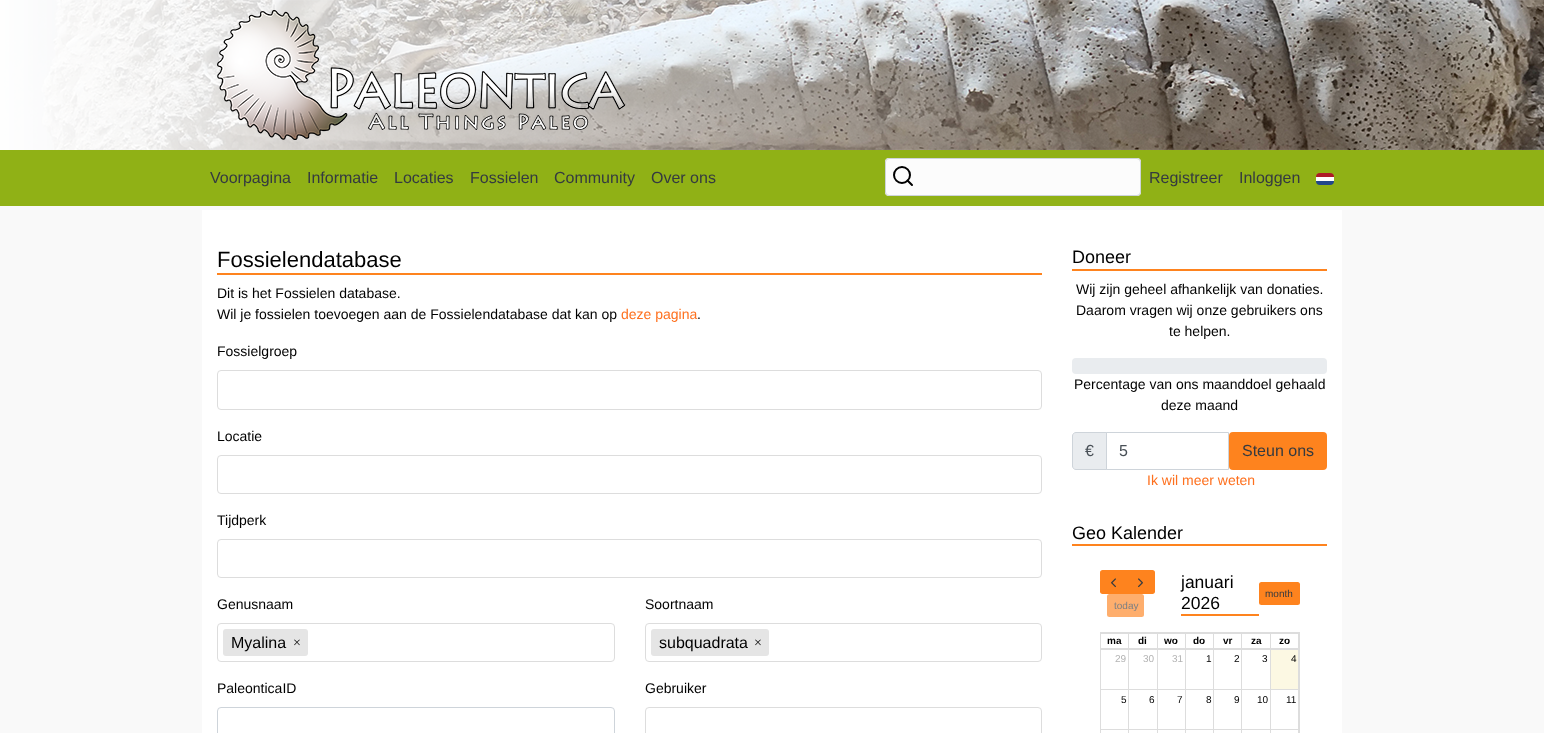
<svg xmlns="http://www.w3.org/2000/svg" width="1544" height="733">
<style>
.a{font:16px Liberation Sans;fill:#343a40}
.b{font:22px Liberation Sans;fill:#000}
.c{font:14px Liberation Sans;fill:#000}
.d{font:14px Liberation Sans;fill:#fe701e}
.e{font:16px Liberation Sans;fill:#000}
.f{font:14px Liberation Serif;fill:#000}
.g{font:18px Liberation Sans;fill:#000}
.h{font:16px Liberation Sans;fill:#495057}
.i{font:17.5px Liberation Sans;fill:#000}
.j{font:10px Liberation Sans;fill:#343a40}
.k{font:10px Liberation Sans;fill:#7b7f83}
.l{font:bold 10px Liberation Sans;fill:#000}
.m{font:10px Liberation Sans;fill:#b3b3b3}
.n{font:10px Liberation Sans;fill:#000}
</style>
<rect width="100%" height="100%" fill="#f9f9f9"/>
<image href="1.png" x="0" y="0" width="1544" height="150"/>
<image href="2.png" x="217" y="10" width="408" height="130"/>
<path fill="#90b116" d="M0 150h1544v56H0z"/>
<rect fill="#fcfcfc" x="885" y="158" width="256" height="38" rx="4"/>
<circle fill="none" stroke="#000" stroke-width="2" cx="902" cy="175" r="8"/>
<path fill="none" stroke="#000" stroke-width="2" stroke-linecap="round" stroke-linejoin="round" d="M912 185l-4.5-4.5"/>
<rect fill="none" stroke="#ced4da" x="885.5" y="158.5" width="255" height="37" rx="3.5"/>
<image href="3.png" x="1316" y="173" width="18" height="12"/>
<path fill="#fff" d="M202 210h1140v523H202z"/>
<path fill="#fe831e" d="M217 273h825v2H217z"/>
<rect fill="none" stroke="#ddd" x="217.5" y="370.5" width="824" height="39" rx="3.5"/>
<rect fill="none" stroke="#ddd" x="217.5" y="455.5" width="824" height="38" rx="3.5"/>
<rect fill="none" stroke="#ddd" x="217.5" y="539.5" width="824" height="38" rx="3.5"/>
<rect fill="none" stroke="#ddd" x="217.5" y="623.5" width="397" height="38" rx="3.5"/>
<rect fill="#e5e5e5" x="223" y="629" width="85" height="27" rx="3"/>
<rect fill="none" stroke="#ddd" x="645.5" y="623.5" width="396" height="38" rx="3.5"/>
<rect fill="#e5e5e5" x="651" y="629" width="118" height="27" rx="3"/>
<rect fill="none" stroke="#ced4da" x="217.5" y="707.5" width="397" height="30" rx="3.5"/>
<rect fill="none" stroke="#ddd" x="645.5" y="707.5" width="396" height="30" rx="3.5"/>
<path fill="#fe831e" d="M1072 269h255v2H1072z"/>
<rect fill="#e9ecef" x="1072" y="358" width="255" height="16" rx="4"/>
<path fill="#e9ecef" stroke="#ced4da" d="M1076 432.5h30.5v37h-30.5c-2 0-3.5-1.5-3.5-3.5v-30c0-2 1.5-3.5 3.5-3.5z"/>
<path fill="none" stroke="#ced4da" d="M1106.5 432.5h122v37H1106.5z"/>
<rect fill="#fe831e" x="1229" y="432" width="98" height="38" rx="4"/>
<path fill="#fe831e" d="M1072 544h255v2H1072z"/>
<path fill="#fe831e" d="M1181 614h78v2H1181z"/>
<rect fill="#fe831e" x="1259" y="582" width="41" height="23" rx="2.5"/>
<path fill="#fe831e" d="M1102.5 570h25.5v24h-25.5c-1.5 0-2.5-1-2.5-2.5v-19c0-1.5 1-2.5 2.5-2.5z"/>
<image href="4.png" x="1111" y="578" width="5" height="10"/>
<path fill="#fe831e" d="M1127 570h25.5c1.5 0 2.5 1 2.5 2.5v19c0 1.5-1 2.5-2.5 2.5h-25.5z"/>
<image href="5.png" x="1138" y="578" width="5" height="10"/>
<rect fill="#feae6d" x="1107" y="594" width="37" height="23" rx="2.5"/>
<path fill="#ddd" d="M1100 632h200v1H1100z"/>
<path fill="#ddd" d="M1100 648h200v1H1100z"/>
<path fill="#ddd" d="M1299 648h1v85H1299z"/>
<path fill="#ddd" d="M1299 632h1v17H1299z"/>
<path fill="#ddd" d="M1100 648h1v85H1100z"/>
<path fill="#ddd" d="M1100 632h1v17H1100z"/>
<path fill="#ddd" d="M1270 633h29v1H1270z"/>
<path fill="#ddd" d="M1270 633h1v16H1270z"/>
<path fill="#ddd" d="M1241 633h30v1H1241z"/>
<path fill="#ddd" d="M1241 633h1v16H1241z"/>
<path fill="#ddd" d="M1213 633h29v1H1213z"/>
<path fill="#ddd" d="M1213 633h1v16H1213z"/>
<path fill="#ddd" d="M1185 633h29v1H1185z"/>
<path fill="#ddd" d="M1185 633h1v16H1185z"/>
<path fill="#ddd" d="M1157 633h29v1H1157z"/>
<path fill="#ddd" d="M1157 633h1v16H1157z"/>
<path fill="#ddd" d="M1128 633h30v1H1128z"/>
<path fill="#ddd" d="M1128 633h1v16H1128z"/>
<path fill="#ddd" d="M1100 633h29v1H1100z"/>
<path fill="#ddd" d="M1298 633h1v16H1298z"/>
<path fill="#ddd" d="M1270 649h29v1H1270z"/>
<path fill="#ddd" d="M1298 649h1v41H1298z"/>
<path fill="#ddd" d="M1270 689h29v1H1270z"/>
<path fill="#ddd" d="M1270 649h1v41H1270z"/>
<path fill="#ddd" d="M1241 649h30v1H1241z"/>
<path fill="#ddd" d="M1241 689h30v1H1241z"/>
<path fill="#ddd" d="M1241 649h1v41H1241z"/>
<path fill="#ddd" d="M1213 649h29v1H1213z"/>
<path fill="#ddd" d="M1213 689h29v1H1213z"/>
<path fill="#ddd" d="M1213 649h1v41H1213z"/>
<path fill="#ddd" d="M1185 649h29v1H1185z"/>
<path fill="#ddd" d="M1185 689h29v1H1185z"/>
<path fill="#ddd" d="M1185 649h1v41H1185z"/>
<path fill="#ddd" d="M1157 649h29v1H1157z"/>
<path fill="#ddd" d="M1157 689h29v1H1157z"/>
<path fill="#ddd" d="M1157 649h1v41H1157z"/>
<path fill="#ddd" d="M1128 649h30v1H1128z"/>
<path fill="#ddd" d="M1128 689h30v1H1128z"/>
<path fill="#ddd" d="M1128 649h1v41H1128z"/>
<path fill="#ddd" d="M1101 649h28v1H1101z"/>
<path fill="#ddd" d="M1101 689h28v1H1101z"/>
<path fill="#fcf8e3" d="M1271 650h27v39H1271z"/>
<path fill="#ddd" d="M1298 689h1v41H1298z"/>
<path fill="#ddd" d="M1270 729h29v1H1270z"/>
<path fill="#ddd" d="M1270 689h1v41H1270z"/>
<path fill="#ddd" d="M1241 729h30v1H1241z"/>
<path fill="#ddd" d="M1241 689h1v41H1241z"/>
<path fill="#ddd" d="M1213 729h29v1H1213z"/>
<path fill="#ddd" d="M1213 689h1v41H1213z"/>
<path fill="#ddd" d="M1185 729h29v1H1185z"/>
<path fill="#ddd" d="M1185 689h1v41H1185z"/>
<path fill="#ddd" d="M1157 729h29v1H1157z"/>
<path fill="#ddd" d="M1157 689h1v41H1157z"/>
<path fill="#ddd" d="M1128 729h30v1H1128z"/>
<path fill="#ddd" d="M1128 689h1v41H1128z"/>
<path fill="#ddd" d="M1101 729h28v1H1101z"/>
<path fill="#ddd" d="M1128 729h1v4H1128z"/>
<path fill="#ddd" d="M1157 729h1v4H1157z"/>
<path fill="#ddd" d="M1185 729h1v4H1185z"/>
<path fill="#ddd" d="M1213 729h1v4H1213z"/>
<path fill="#ddd" d="M1241 729h1v4H1241z"/>
<path fill="#ddd" d="M1298 729h1v4H1298z"/>
<path fill="#ddd" d="M1270 729h1v4H1270z"/>
<text class="a" x="210" y="183">Voorpagina</text>
<text class="a" x="307" y="183">Informatie</text>
<text class="a" x="394" y="183">Locaties</text>
<text class="a" x="470" y="183">Fossielen</text>
<text class="a" x="554" y="183">Community</text>
<text class="a" x="651" y="183">Over ons</text>
<text class="a" x="1149" y="183">Registreer</text>
<text class="a" x="1239" y="183">Inloggen</text>
<text class="b" x="217" y="267">Fossielendatabase</text>
<text class="c" x="217" y="298">Dit is het Fossielen database.</text>
<text class="c" x="217" y="319">Wil je fossielen toevoegen aan de Fossielendatabase dat kan op</text>
<text class="d" x="621" y="319">deze pagina</text>
<text class="c" x="697" y="319">.</text>
<text class="c" x="217" y="356">Fossielgroep</text>
<text class="c" x="217" y="441">Locatie</text>
<text class="c" x="217" y="525">Tijdperk</text>
<text class="c" x="217" y="609">Genusnaam</text>
<text class="e" x="231" y="648">Myalina</text>
<text class="f" x="293" y="647">×</text>
<text class="c" x="645" y="609">Soortnaam</text>
<text class="e" x="659" y="648">subquadrata</text>
<text class="f" x="754" y="647">×</text>
<text class="c" x="217" y="693">PaleonticaID</text>
<text class="c" x="645" y="693">Gebruiker</text>
<text class="g" x="1072" y="263">Doneer</text>
<text class="c" x="1076" y="294">Wij zijn geheel afhankelijk van donaties.</text>
<text class="c" x="1076" y="315">Daarom vragen wij onze gebruikers ons</text>
<text class="c" x="1169" y="336">te helpen.</text>
<text class="c" x="1074" y="389">Percentage van ons maanddoel gehaald</text>
<text class="c" x="1161" y="410">deze maand</text>
<text class="h" x="1085" y="456">€</text>
<text class="h" x="1119" y="456">5</text>
<text class="a" x="1242" y="456">Steun ons</text>
<text class="d" x="1147" y="485">Ik wil meer weten</text>
<text class="g" x="1072" y="539">Geo Kalender</text>
<text class="i" x="1181" y="588">januari</text>
<text class="i" x="1181" y="609">2026</text>
<text class="j" x="1265" y="597">month</text>
<text class="k" x="1114" y="609">today</text>
<text class="l" x="1107" y="644">ma</text>
<text class="l" x="1138" y="644">di</text>
<text class="l" x="1164" y="644">wo</text>
<text class="l" x="1193" y="644">do</text>
<text class="l" x="1223" y="644">vr</text>
<text class="l" x="1251" y="644">za</text>
<text class="l" x="1279" y="644">zo</text>
<text class="m" x="1115" y="662">29</text>
<text class="m" x="1143" y="662">30</text>
<text class="m" x="1172" y="662">31</text>
<text class="n" x="1206" y="662">1</text>
<text class="n" x="1234" y="662">2</text>
<text class="n" x="1262" y="662">3</text>
<text class="n" x="1291" y="662">4</text>
<text class="n" x="1121" y="703">5</text>
<text class="n" x="1149" y="703">6</text>
<text class="n" x="1177" y="703">7</text>
<text class="n" x="1206" y="703">8</text>
<text class="n" x="1234" y="703">9</text>
<text class="n" x="1257" y="703">10</text>
<text class="n" x="1286" y="703">11</text>
</svg>
